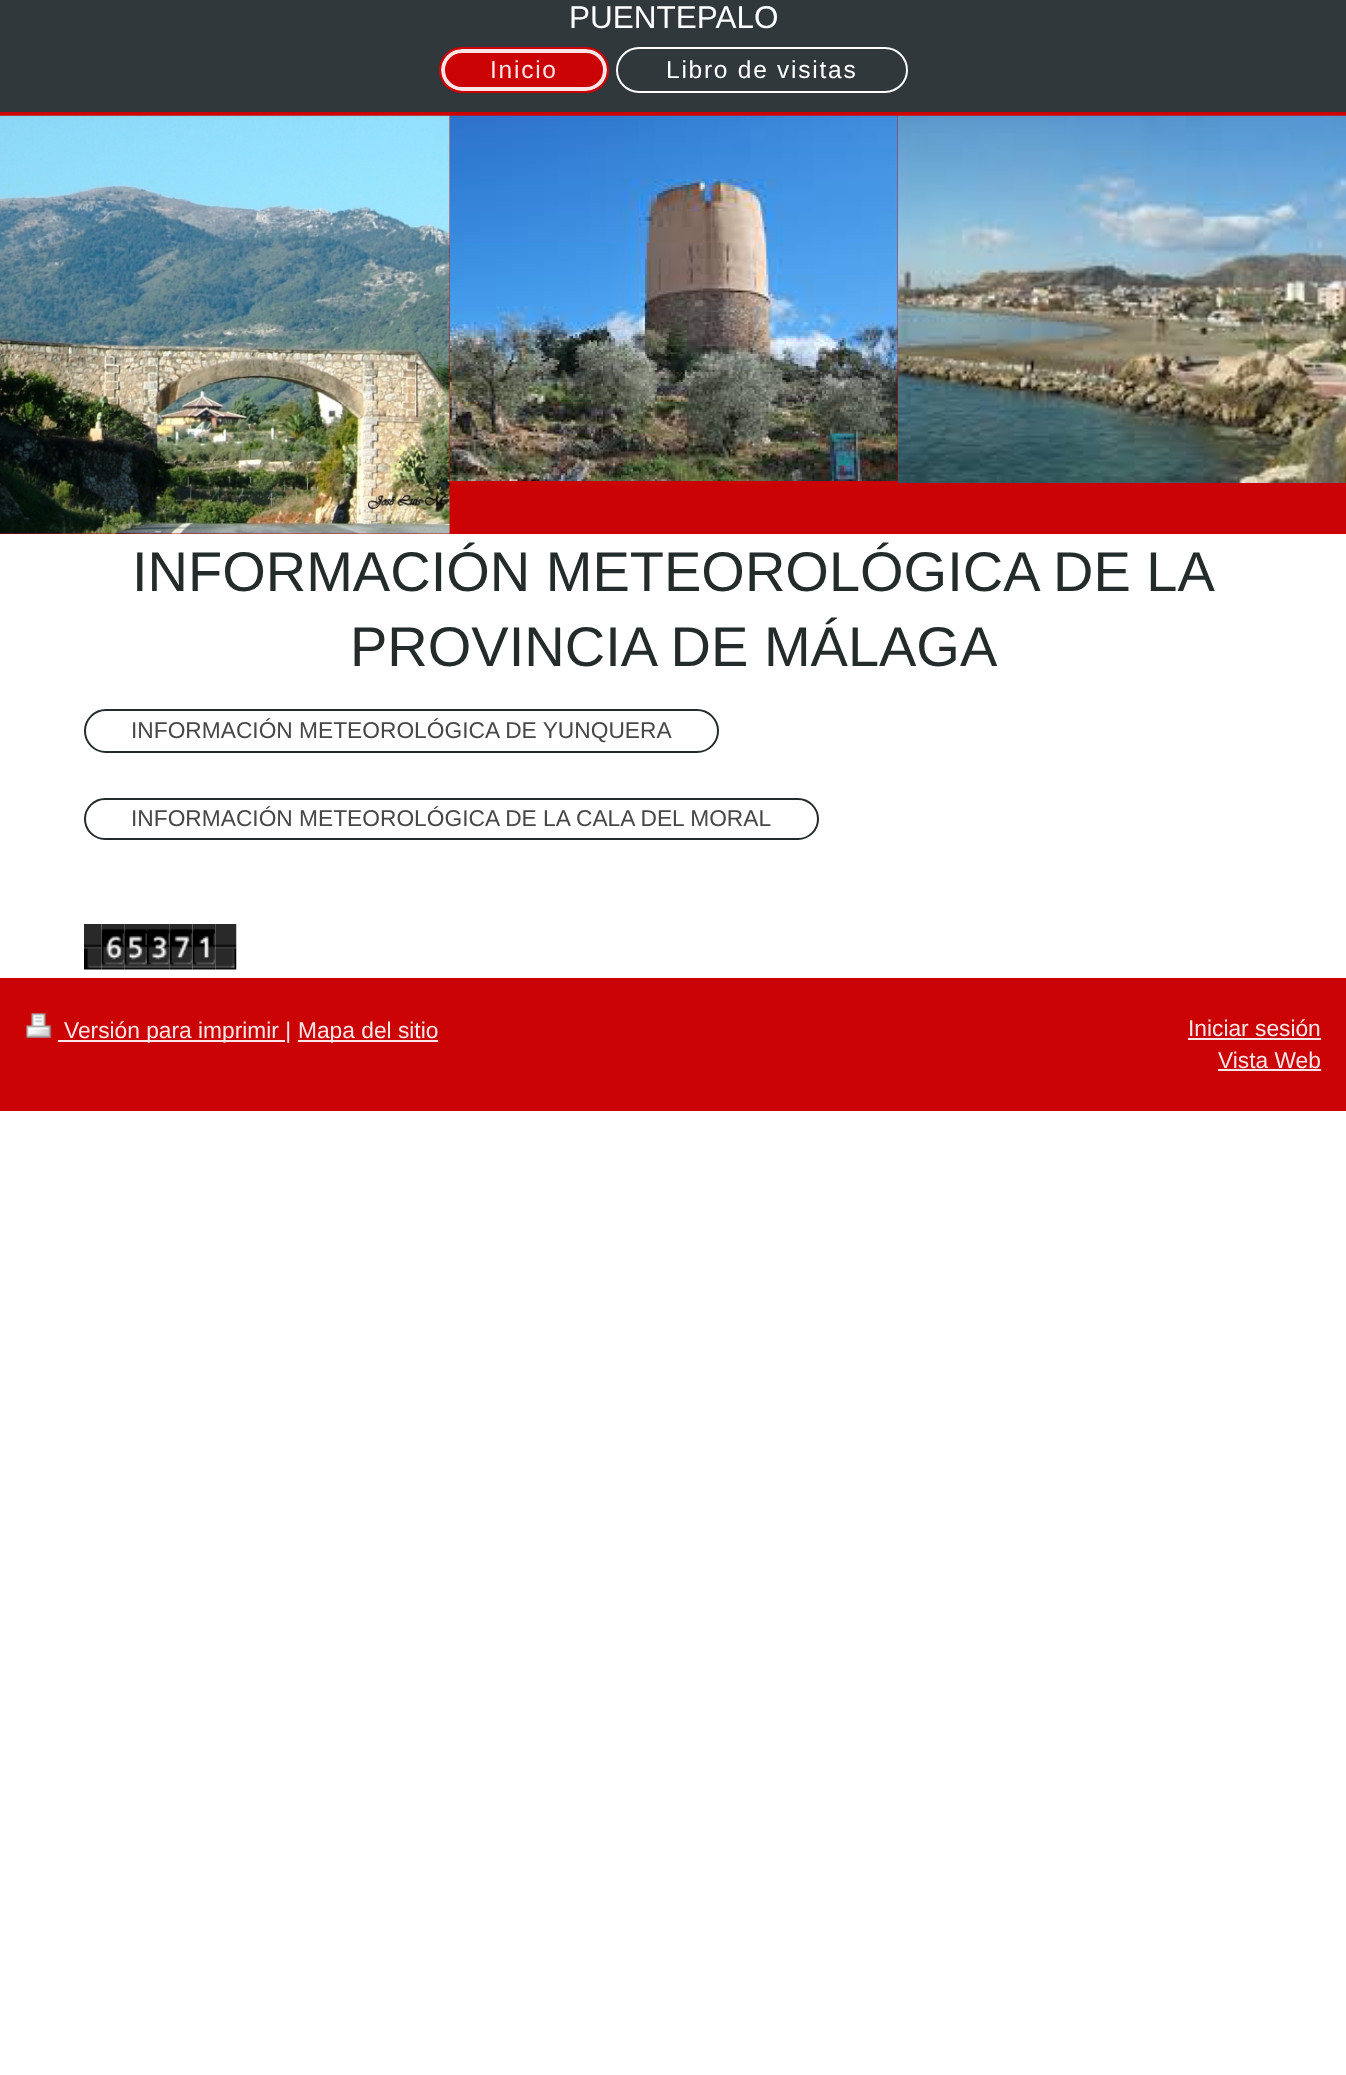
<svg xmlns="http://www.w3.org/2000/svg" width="1346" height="2075">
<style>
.a{font:31.5px Liberation Sans;fill:#fff}
.b{font:24.5px Liberation Sans;letter-spacing:1.75px;fill:#fae6e6}
.c{font:24.5px Liberation Sans;letter-spacing:1.75px;fill:#fff}
.d{font:56px Liberation Sans;fill:#242b2b}
.e{font:22.75px Liberation Sans;fill:#474747}
.f{font:22.75px Liberation Sans;fill:#fae6e6}
</style>
<rect width="100%" height="100%" fill="#fff"/>
<path fill="#30383c" d="M0 0h1346v112H0z"/>
<rect fill="#cc0305" x="439" y="47" width="170" height="46" rx="23"/>
<rect fill="none" stroke="#fae6e6" stroke-width="4" x="443" y="51" width="162" height="38" rx="19"/>
<rect fill="none" stroke="#cc0305" stroke-width="2" x="440" y="48" width="168" height="44" rx="22"/>
<rect fill="none" stroke="#fff" stroke-width="2" x="617" y="48" width="290" height="44" rx="22"/>
<path fill="#cc0305" d="M0 112h1346v422H0z"/>
<image href="1.png" x="0" y="115" width="450" height="419"/>
<image href="2.png" x="449" y="115" width="449" height="367"/>
<image href="3.png" x="897" y="115" width="449" height="368"/>
<rect fill="none" stroke="#242b2b" stroke-width="2" x="85" y="710" width="633" height="42" rx="21"/>
<rect fill="none" stroke="#242b2b" stroke-width="2" x="85" y="799" width="733" height="40" rx="20"/>
<image href="4.png" x="84" y="924" width="18" height="46"/>
<image href="5.png" x="101" y="924" width="24" height="46"/>
<image href="6.png" x="124" y="924" width="23" height="46"/>
<image href="7.png" x="147" y="924" width="23" height="46"/>
<image href="8.png" x="169" y="924" width="24" height="46"/>
<image href="9.png" x="192" y="924" width="24" height="46"/>
<image href="10.png" x="215" y="924" width="22" height="46"/>
<path fill="#cc0305" d="M0 978h1346v133H0z"/>
<image href="11.png" x="26" y="1013" width="26" height="25"/>
<path fill="#fae6e6" d="M58 1040h227v2H58z"/>
<path fill="#fae6e6" d="M298 1040h140v2H298z"/>
<path fill="#fae6e6" d="M1188 1038h133v2H1188z"/>
<path fill="#fae6e6" d="M1218 1069h103v2H1218z"/>
<text class="a" x="569" y="28">PUENTEPALO</text>
<text class="b" x="490" y="78">Inicio</text>
<text class="c" x="666" y="78">Libro de visitas</text>
<text class="d" x="132" y="591">INFORMACIÓN METEOROLÓGICA DE LA</text>
<text class="d" x="350" y="666">PROVINCIA DE MÁLAGA</text>
<text class="e" x="131" y="738">INFORMACIÓN METEOROLÓGICA DE YUNQUERA</text>
<text class="e" x="131" y="826">INFORMACIÓN METEOROLÓGICA DE LA CALA DEL MORAL</text>
<text class="f" x="64" y="1038">Versión para imprimir |</text>
<text class="f" x="298" y="1038">Mapa del sitio</text>
<text class="f" x="1188" y="1036">Iniciar sesión</text>
<text class="f" x="1218" y="1068">Vista Web</text>
</svg>
